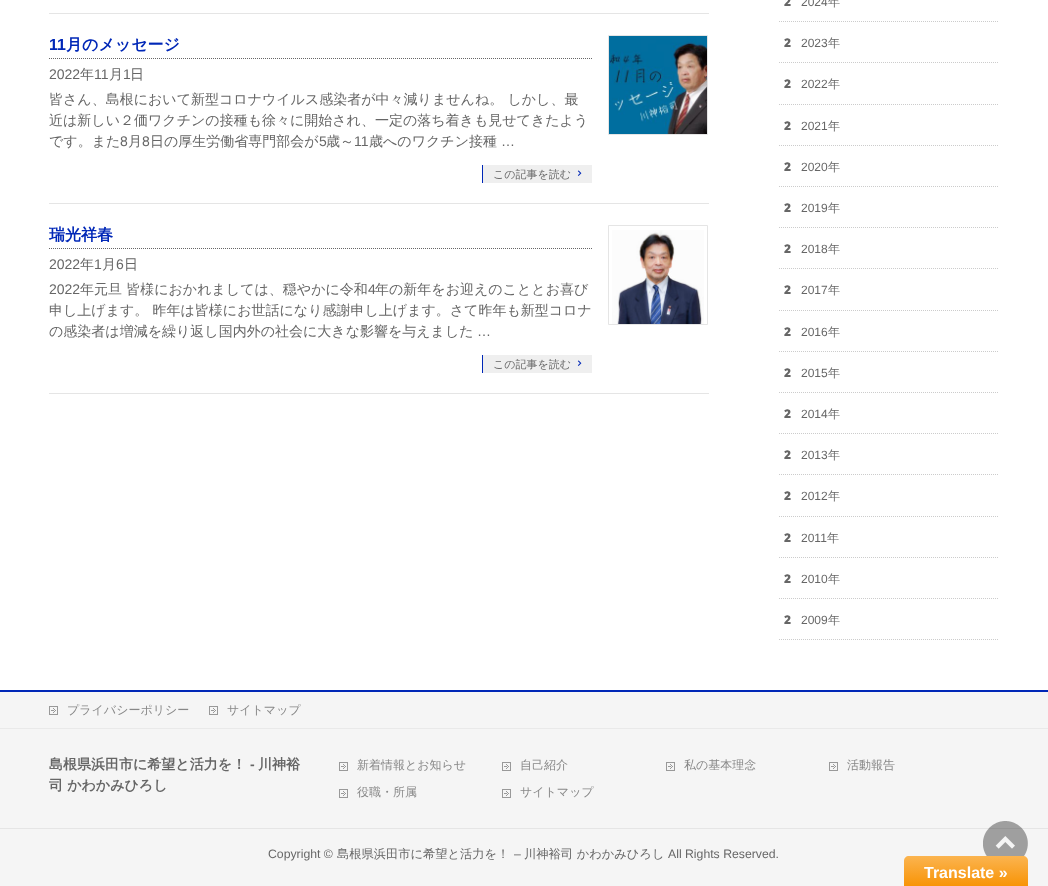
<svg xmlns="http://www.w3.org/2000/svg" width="1048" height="886">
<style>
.a{font:bold 16px Liberation Sans;fill:#0027b7}
.b{font:bold 16px WenQuanYi Zen Hei;fill:#0027b7}
.c{font:14px Liberation Sans;fill:#666}
.d{font:500 14px WenQuanYi Zen Hei;fill:#666}
.e{font:500 11px WenQuanYi Zen Hei;fill:#666}
.f{font:900 12px Noto Sans;fill:#666}
.g{font:12px Liberation Sans;fill:#666}
.h{font:500 12px WenQuanYi Zen Hei;fill:#666}
.i{font:500 12px WenQuanYi Zen Hei;fill:#888}
.j{font:bold 14px WenQuanYi Zen Hei;fill:#666}
.k{font:bold 14px Liberation Sans;fill:#666}
.l{font:12.25px Liberation Sans;fill:#666}
.m{font:500 12.25px WenQuanYi Zen Hei;fill:#666}
.n{font:bold 16px Liberation Sans;fill:#fff}
</style>
<defs>
<linearGradient id="g1" gradientUnits="userSpaceOnUse" x1="966" y1="856" x2="966" y2="886"><stop offset="0" stop-color="#fbb450"/><stop offset="1" stop-color="#f89406"/></linearGradient>
</defs>
<rect width="100%" height="100%" fill="#fff"/>
<path fill="#e5e5e5" d="M49 13h660v1H49z"/>
<path fill="#e5e5e5" d="M49 203h660v1H49z"/>
<path fill="none" stroke="#666" stroke-dasharray="1 1" d="M49 58.5h543"/>
<path fill="#efefef" d="M483 165h109v18H483z"/>
<path fill="#0027b7" d="M482 165h1v18H482z"/>
<image href="1.png" x="577" y="170" width="5" height="6"/>
<path fill="none" stroke="#e5e5e5" d="M608.5 35.5h99v99H608.5z"/>
<image href="2.png" x="609" y="36" width="98" height="98"/>
<path fill="#e5e5e5" d="M49 393h660v1H49z"/>
<path fill="none" stroke="#666" stroke-dasharray="1 1" d="M49 248.5h543"/>
<path fill="#efefef" d="M483 355h109v18H483z"/>
<path fill="#0027b7" d="M482 355h1v18H482z"/>
<image href="1.png" x="577" y="360" width="5" height="6"/>
<path fill="none" stroke="#e5e5e5" d="M608.5 225.5h99v99H608.5z"/>
<image href="3.png" x="612" y="230" width="92" height="94"/>
<path fill="none" stroke="#ccc" stroke-dasharray="1 1" d="M779 21.5h220"/>
<path fill="none" stroke="#ccc" stroke-dasharray="1 1" d="M779 62.5h220"/>
<path fill="none" stroke="#ccc" stroke-dasharray="1 1" d="M779 104.5h220"/>
<path fill="none" stroke="#ccc" stroke-dasharray="1 1" d="M779 145.5h220"/>
<path fill="none" stroke="#ccc" stroke-dasharray="1 1" d="M779 186.5h220"/>
<path fill="none" stroke="#ccc" stroke-dasharray="1 1" d="M779 227.5h220"/>
<path fill="none" stroke="#ccc" stroke-dasharray="1 1" d="M779 268.5h220"/>
<path fill="none" stroke="#ccc" stroke-dasharray="1 1" d="M779 310.5h220"/>
<path fill="none" stroke="#ccc" stroke-dasharray="1 1" d="M779 351.5h220"/>
<path fill="none" stroke="#ccc" stroke-dasharray="1 1" d="M779 392.5h220"/>
<path fill="none" stroke="#ccc" stroke-dasharray="1 1" d="M779 433.5h220"/>
<path fill="none" stroke="#ccc" stroke-dasharray="1 1" d="M779 474.5h220"/>
<path fill="none" stroke="#ccc" stroke-dasharray="1 1" d="M779 516.5h220"/>
<path fill="none" stroke="#ccc" stroke-dasharray="1 1" d="M779 557.5h220"/>
<path fill="none" stroke="#ccc" stroke-dasharray="1 1" d="M779 598.5h220"/>
<path fill="none" stroke="#ccc" stroke-dasharray="1 1" d="M779 639.5h220"/>
<path fill="#f5f5f5" d="M0 692h1048v36H0z"/>
<path fill="#0027b7" d="M0 690h1048v2H0z"/>
<path fill="#e9e9e9" d="M0 728h1048v1H0z"/>
<image href="4.png" x="49" y="706" width="9" height="9"/>
<image href="4.png" x="209" y="706" width="9" height="9"/>
<path fill="#f5f5f5" d="M0 729h1048v99H0z"/>
<image href="4.png" x="339" y="762" width="9" height="9"/>
<image href="4.png" x="502" y="762" width="9" height="9"/>
<image href="4.png" x="666" y="762" width="9" height="9"/>
<image href="4.png" x="829" y="762" width="9" height="9"/>
<image href="4.png" x="339" y="789" width="9" height="9"/>
<image href="4.png" x="502" y="789" width="9" height="9"/>
<path fill="#f5f5f5" d="M0 829h1048v57H0z"/>
<path fill="#e5e5e5" d="M0 828h1048v1H0z"/>
<image href="5.png" x="983" y="821" width="45" height="36"/>
<path fill="url(#g1)" d="M909 856h114c3 0 5 2 5 5v25h-124v-25c0-3 2-5 5-5z"/>
<text class="a" x="49" y="50">11</text>
<text class="b" x="66" y="50">月のメッセージ</text>
<text class="c" x="49" y="79">2022</text>
<text class="d" x="80" y="79">年</text>
<text class="c" x="94" y="79">11</text>
<text class="d" x="109" y="79">月</text>
<text class="c" x="123" y="79">1</text>
<text class="d" x="130" y="79">日</text>
<text class="d" x="49" y="104">皆さん、島根において新型コロナウイルス感染者が中々減りませんね。 しかし、最</text>
<text class="d" x="49" y="125">近は新しい２価ワクチンの接種も徐々に開始され、一定の落ち着きも見せてきたよう</text>
<text class="d" x="49" y="146">です。また</text>
<text class="c" x="120" y="146">8</text>
<text class="d" x="128" y="146">月</text>
<text class="c" x="142" y="146">8</text>
<text class="d" x="150" y="146">日の厚生労働省専門部会が</text>
<text class="c" x="319" y="146">5</text>
<text class="d" x="326" y="146">歳～</text>
<text class="c" x="354" y="146">11</text>
<text class="d" x="369" y="146">歳へのワクチン接種</text>
<text class="c" x="501" y="146">…</text>
<text class="e" x="493" y="178">この記事を読む</text>
<text class="b" x="49" y="240">瑞光祥春</text>
<text class="c" x="49" y="269">2022</text>
<text class="d" x="80" y="269">年</text>
<text class="c" x="94" y="269">1</text>
<text class="d" x="102" y="269">月</text>
<text class="c" x="116" y="269">6</text>
<text class="d" x="124" y="269">日</text>
<text class="c" x="49" y="294">2022</text>
<text class="d" x="80" y="294">年元旦 皆様におかれましては、穏やかに令和</text>
<text class="c" x="368" y="294">4</text>
<text class="d" x="375" y="294">年の新年をお迎えのこととお喜び</text>
<text class="d" x="49" y="315">申し上げます。 昨年は皆様にお世話になり感謝申し上げます。さて昨年も新型コロナ</text>
<text class="d" x="49" y="336">の感染者は増減を繰り返し国内外の社会に大きな影響を与えました</text>
<text class="c" x="477" y="336">…</text>
<text class="e" x="493" y="368">この記事を読む</text>
<text class="f" x="784" y="6">2</text>
<text class="g" x="801" y="6">2024</text>
<text class="h" x="828" y="6">年</text>
<text class="f" x="784" y="47">2</text>
<text class="g" x="801" y="47">2023</text>
<text class="h" x="828" y="47">年</text>
<text class="f" x="784" y="88">2</text>
<text class="g" x="801" y="88">2022</text>
<text class="h" x="828" y="88">年</text>
<text class="f" x="784" y="130">2</text>
<text class="g" x="801" y="130">2021</text>
<text class="h" x="828" y="130">年</text>
<text class="f" x="784" y="171">2</text>
<text class="g" x="801" y="171">2020</text>
<text class="h" x="828" y="171">年</text>
<text class="f" x="784" y="212">2</text>
<text class="g" x="801" y="212">2019</text>
<text class="h" x="828" y="212">年</text>
<text class="f" x="784" y="253">2</text>
<text class="g" x="801" y="253">2018</text>
<text class="h" x="828" y="253">年</text>
<text class="f" x="784" y="294">2</text>
<text class="g" x="801" y="294">2017</text>
<text class="h" x="828" y="294">年</text>
<text class="f" x="784" y="336">2</text>
<text class="g" x="801" y="336">2016</text>
<text class="h" x="828" y="336">年</text>
<text class="f" x="784" y="377">2</text>
<text class="g" x="801" y="377">2015</text>
<text class="h" x="828" y="377">年</text>
<text class="f" x="784" y="418">2</text>
<text class="g" x="801" y="418">2014</text>
<text class="h" x="828" y="418">年</text>
<text class="f" x="784" y="459">2</text>
<text class="g" x="801" y="459">2013</text>
<text class="h" x="828" y="459">年</text>
<text class="f" x="784" y="500">2</text>
<text class="g" x="801" y="500">2012</text>
<text class="h" x="828" y="500">年</text>
<text class="f" x="784" y="542">2</text>
<text class="g" x="801" y="542">2011</text>
<text class="h" x="827" y="542">年</text>
<text class="f" x="784" y="583">2</text>
<text class="g" x="801" y="583">2010</text>
<text class="h" x="828" y="583">年</text>
<text class="f" x="784" y="624">2</text>
<text class="g" x="801" y="624">2009</text>
<text class="h" x="828" y="624">年</text>
<text class="i" x="67" y="714">プライバシーポリシー</text>
<text class="i" x="227" y="714">サイトマップ</text>
<text class="j" x="49" y="769">島根県浜田市に希望と活力を！</text>
<text class="k" x="250" y="769">-</text>
<text class="j" x="258" y="769">川神裕</text>
<text class="j" x="49" y="790">司 かわかみひろし</text>
<text class="i" x="357" y="769">新着情報とお知らせ</text>
<text class="i" x="520" y="769">自己紹介</text>
<text class="i" x="684" y="769">私の基本理念</text>
<text class="i" x="847" y="769">活動報告</text>
<text class="i" x="357" y="796">役職・所属</text>
<text class="i" x="520" y="796">サイトマップ</text>
<text class="l" x="268" y="858">Copyright ©</text>
<text class="m" x="337" y="858">島根県浜田市に希望と活力を！</text>
<text class="l" x="514" y="858">–</text>
<text class="m" x="524" y="858">川神裕司 かわかみひろし</text>
<text class="l" x="668" y="858">All Rights Reserved.</text>
<text class="n" x="924" y="878">Translate »</text>
</svg>
